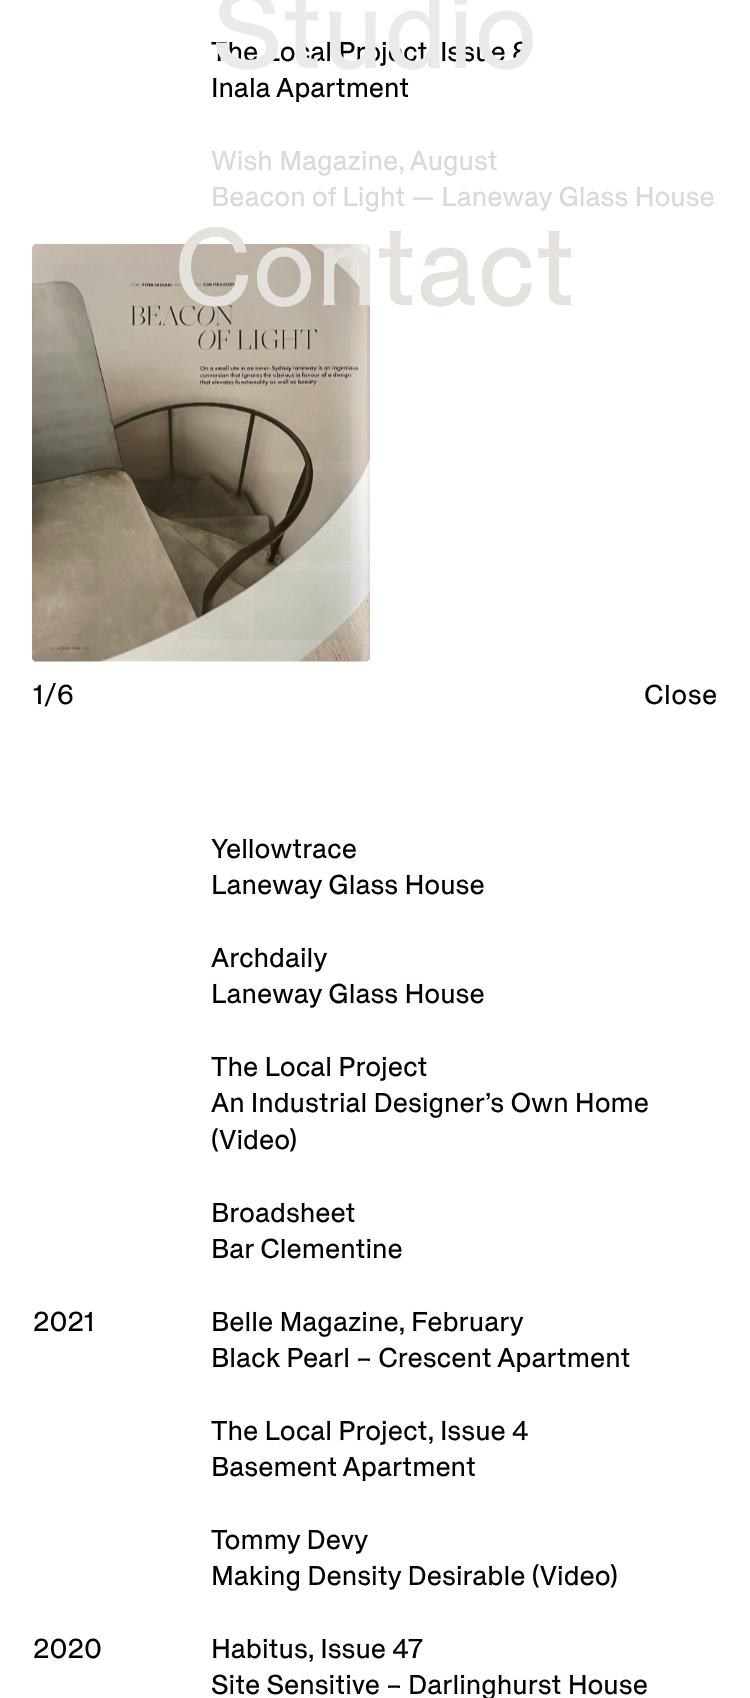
<svg xmlns="http://www.w3.org/2000/svg" width="750" height="1698">
<style>
.a{font:109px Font;fill:#e5e1dc}
.b{font:27.25px Font;fill:#000}
.c{font:109px Font;fill:#eaeaea}
.d{font:27.25px Font;fill:#d9d9d9}
.e{font:27.25px Font;letter-spacing:0.5px;fill:#000}
</style>
<rect width="100%" height="100%" fill="#fff"/>
<image href="1.png" x="32" y="244" width="339" height="418"/>
<text class="a" x="174" y="305">Contact</text>
<text class="b" x="211" y="61">The Local Project, Issue 8</text>
<text class="c" x="212" y="68">Studio</text>
<text class="b" x="211" y="97">Inala Apartment</text>
<text class="d" x="211" y="170">Wish Magazine, August</text>
<text class="d" x="211" y="206">Beacon of Light — Laneway Glass House</text>
<text class="e" x="33" y="704">1/6</text>
<text class="e" x="644" y="704">Close</text>
<text class="b" x="211" y="858">Yellowtrace</text>
<text class="b" x="211" y="894">Laneway Glass House</text>
<text class="b" x="211" y="967">Archdaily</text>
<text class="b" x="211" y="1003">Laneway Glass House</text>
<text class="b" x="211" y="1076">The Local Project</text>
<text class="b" x="211" y="1112">An Industrial Designer’s Own Home</text>
<text class="b" x="211" y="1149">(Video)</text>
<text class="b" x="211" y="1222">Broadsheet</text>
<text class="b" x="211" y="1258">Bar Clementine</text>
<text class="b" x="33" y="1331">2021</text>
<text class="b" x="211" y="1331">Belle Magazine, February</text>
<text class="b" x="211" y="1367">Black Pearl – Crescent Apartment</text>
<text class="b" x="211" y="1440">The Local Project, Issue 4</text>
<text class="b" x="211" y="1476">Basement Apartment</text>
<text class="b" x="211" y="1549">Tommy Devy</text>
<text class="b" x="211" y="1585">Making Density Desirable (Video)</text>
<text class="b" x="33" y="1658">2020</text>
<text class="b" x="211" y="1658">Habitus, Issue 47</text>
<text class="b" x="211" y="1694">Site Sensitive – Darlinghurst House</text>
</svg>
